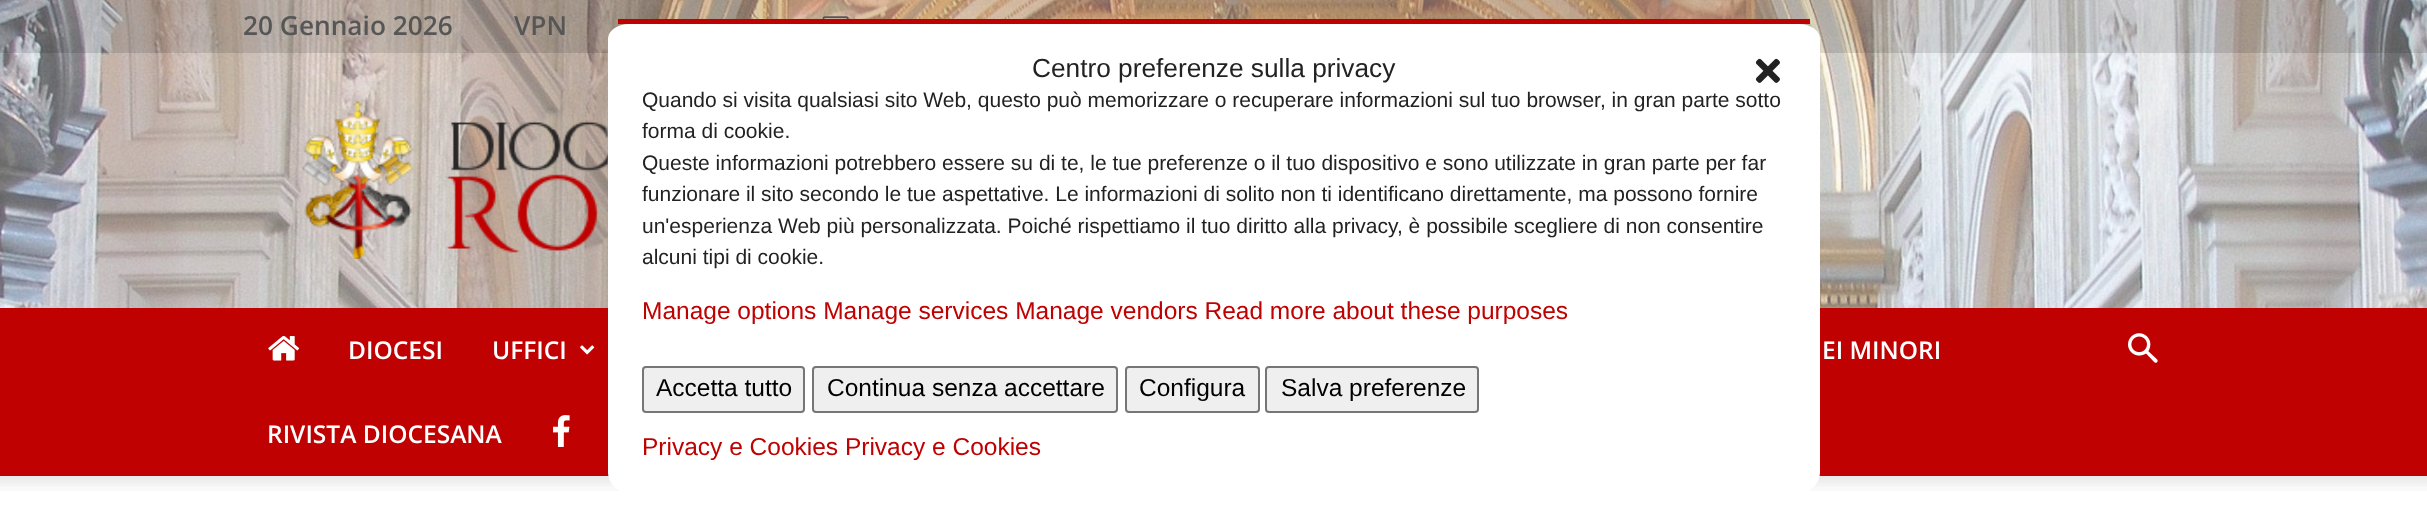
<svg xmlns="http://www.w3.org/2000/svg" width="2427" height="509">
<style>
.a{font:600 26.25px Open Sans;fill:#565656}
.b{font:600 24.5px Open Sans;fill:#fff}
.c{font:26.25px Liberation Sans;fill:#222}
.d{font:21px Liberation Sans;fill:#222}
.e{font:24.5px Liberation Sans;fill:#bf0101}
.f{font:24.5px Liberation Sans;fill:#000}
</style>
<rect width="100%" height="100%" fill="#fff"/>
<image href="1.png" x="0" y="0" width="2427" height="308"/>
<path fill="#0000001f" d="M0 0h2427v53H0z"/>
<image href="2.png" x="822" y="16" width="27" height="3"/>
<image href="3.png" x="302" y="101" width="306" height="158"/>
<path fill="#bf0101" d="M0 308h2427v168H0z"/>
<image href="4.png" x="268" y="335" width="32" height="26"/>
<image href="5.png" x="580" y="345" width="15" height="10"/>
<image href="6.png" x="553" y="415" width="17" height="32"/>
<image href="7.png" x="2128" y="333" width="30" height="30"/>
<image href="8.png" x="0" y="476" width="2427" height="15"/>
<path fill="#fff" d="M629 24h1170c12 0 21 7 21 15v433c0 11-9 21-21 21h-1170c-12 0-21-10-21-21v-433c0-8 9-15 21-15z"/>
<path fill="#bf0101" d="M618 19h1192v5H618z"/>
<image href="9.png" x="1755" y="58" width="25" height="25"/>
<rect fill="#efefef" stroke="#767676" stroke-width="2" x="643" y="367" width="161" height="45" rx="3"/>
<rect fill="#efefef" stroke="#767676" stroke-width="2" x="813" y="367" width="304" height="45" rx="3"/>
<rect fill="#efefef" stroke="#767676" stroke-width="2" x="1126" y="367" width="133" height="45" rx="3"/>
<rect fill="#efefef" stroke="#767676" stroke-width="2" x="1266" y="367" width="212" height="45" rx="3"/>
<text class="a" x="243" y="35">20 Gennaio 2026</text>
<text class="a" x="514" y="35">VPN</text>
<text class="b" x="348" y="359">DIOCESI</text>
<text class="b" x="492" y="359">UFFICI</text>
<text class="b" x="1822" y="359">EI MINORI</text>
<text class="b" x="267" y="443">RIVISTA DIOCESANA</text>
<text class="c" x="1032" y="77">Centro preferenze sulla privacy</text>
<text class="d" x="642" y="107">Quando si visita qualsiasi sito Web, questo può memorizzare o recuperare informazioni sul tuo browser, in gran parte sotto</text>
<text class="d" x="642" y="138">forma di cookie.</text>
<text class="d" x="642" y="170">Queste informazioni potrebbero essere su di te, le tue preferenze o il tuo dispositivo e sono utilizzate in gran parte per far</text>
<text class="d" x="642" y="201">funzionare il sito secondo le tue aspettative. Le informazioni di solito non ti identificano direttamente, ma possono fornire</text>
<text class="d" x="642" y="233">un'esperienza Web più personalizzata. Poiché rispettiamo il tuo diritto alla privacy, è possibile scegliere di non consentire</text>
<text class="d" x="642" y="264">alcuni tipi di cookie.</text>
<text class="e" x="642" y="319">Manage options Manage services Manage vendors Read more about these purposes</text>
<text class="f" x="656" y="396">Accetta tutto</text>
<text class="f" x="827" y="396">Continua senza accettare</text>
<text class="f" x="1139" y="396">Configura</text>
<text class="f" x="1281" y="396">Salva preferenze</text>
<text class="e" x="642" y="455">Privacy e Cookies Privacy e Cookies</text>
</svg>
